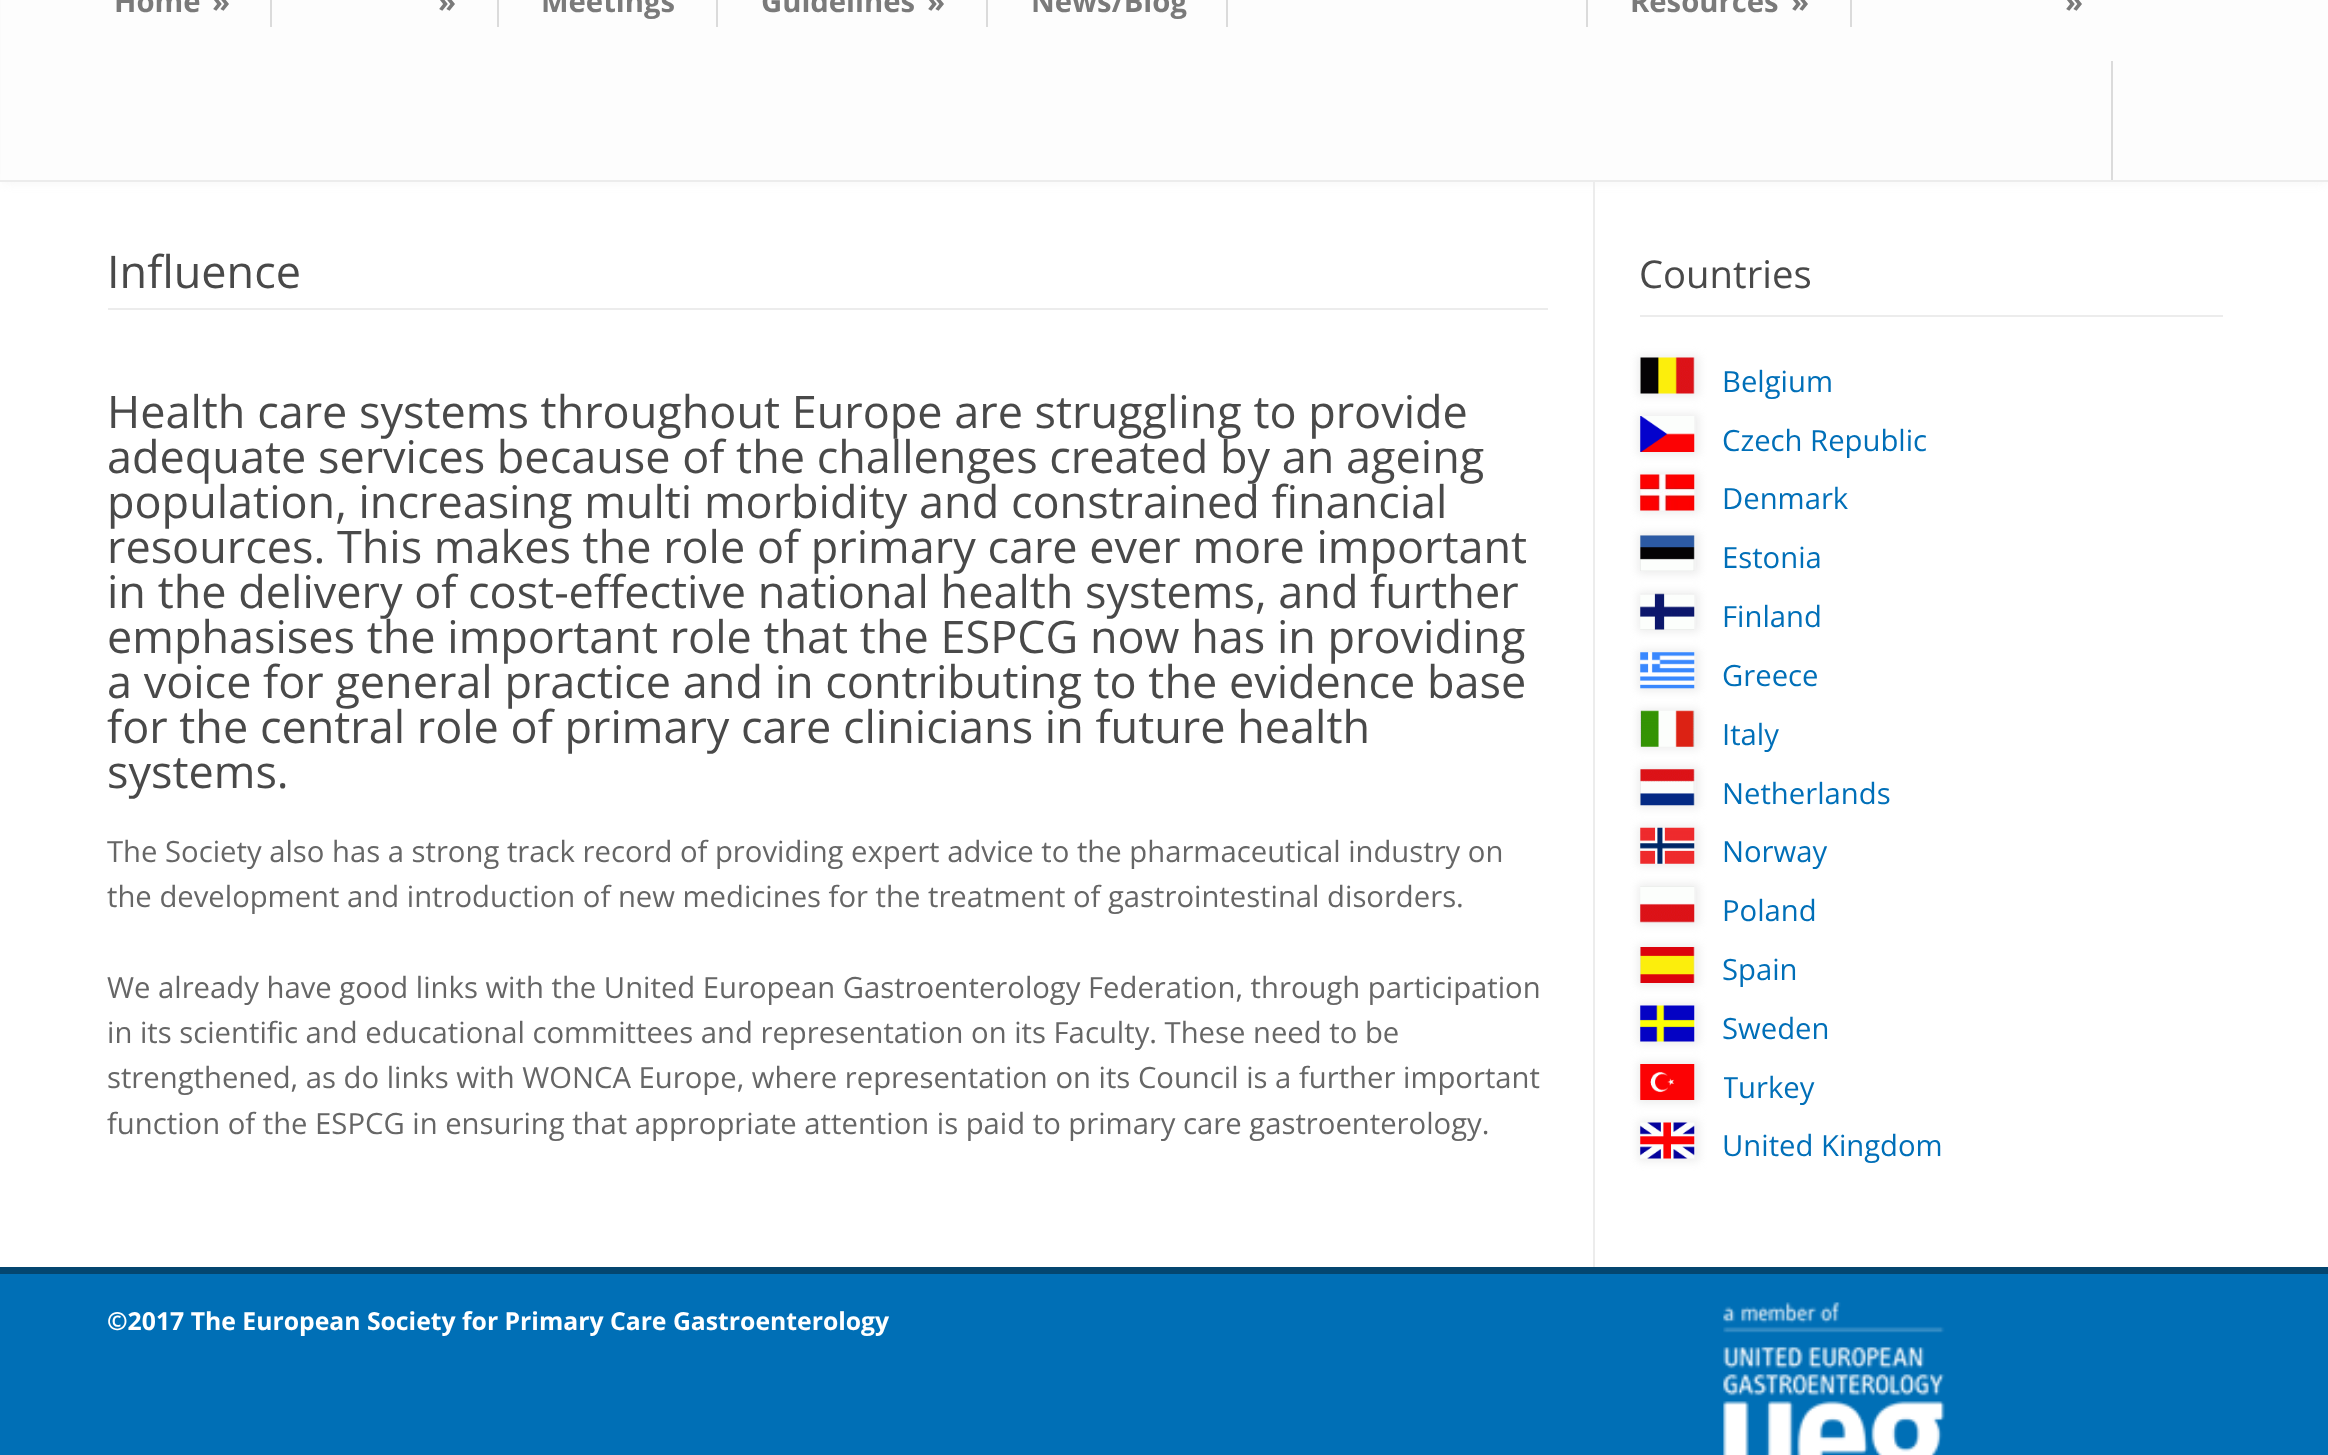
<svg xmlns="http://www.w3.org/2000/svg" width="2328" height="1455">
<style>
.a{font:bold 29.25px Open Sans;fill:#7a7a7a}
.b{font:45px Open Sans;fill:#494949}
.c{font:29.25px Open Sans;fill:#666}
.d{font:38.25px Open Sans;fill:#494949}
.e{font:29.25px Open Sans;fill:#006fb8}
.f{font:bold 24.75px Open Sans;fill:#fff}
</style>
<defs>
<clipPath id="clip1"><path d="M1724 1064h499v45H1724z"/></clipPath>
</defs>
<rect width="100%" height="100%" fill="#fff"/>
<path fill="#f5f5f5" filter="blur(5.5px)" d="M2 -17h2325v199H2z"/>
<path fill="#fdfdfd" d="M1 0h2327v180H1z"/>
<path fill="#ececec" d="M0 180h2328v2H0z"/>
<path fill="#dbdbdb" d="M270 0h2v27H270z"/>
<path fill="#dbdbdb" d="M497 0h2v27H497z"/>
<path fill="#dbdbdb" d="M716 0h2v27H716z"/>
<path fill="#dbdbdb" d="M986 0h2v27H986z"/>
<path fill="#dbdbdb" d="M1226 0h2v27H1226z"/>
<path fill="#dbdbdb" d="M1586 0h2v27H1586z"/>
<path fill="#dbdbdb" d="M1850 0h2v27H1850z"/>
<path fill="#dbdbdb" d="M2111 61h2v119H2111z"/>
<path fill="#ececec" d="M108 308h1440v2H108z"/>
<path fill="#ececec" d="M1593 182h2v1085H1593z"/>
<path fill="#ececec" d="M1640 315h583v2H1640z"/>
<path fill="#ececec" filter="blur(4.5px)" d="M1638 356h61v40H1638z"/>
<path fill="#f3f3f3" d="M1641 359h55v34H1641z"/>
<image href="1.png" x="1640" y="357" width="55" height="37"/>
<path fill="#ececec" filter="blur(4.5px)" d="M1638 414h61v41H1638z"/>
<path fill="#f3f3f3" d="M1641 417h55v35H1641z"/>
<image href="2.png" x="1640" y="416" width="55" height="36"/>
<path fill="#ececec" filter="blur(4.5px)" d="M1638 473h61v40H1638z"/>
<path fill="#f3f3f3" d="M1641 476h55v34H1641z"/>
<image href="3.png" x="1640" y="474" width="55" height="37"/>
<path fill="#ececec" filter="blur(4.5px)" d="M1638 533h61v41H1638z"/>
<path fill="#f3f3f3" d="M1641 536h55v35H1641z"/>
<image href="4.png" x="1640" y="535" width="55" height="36"/>
<path fill="#ececec" filter="blur(4.5px)" d="M1638 592h61v40H1638z"/>
<path fill="#f3f3f3" d="M1641 595h55v34H1641z"/>
<image href="5.png" x="1640" y="593" width="55" height="37"/>
<path fill="#ececec" filter="blur(4.5px)" d="M1638 650h61v41H1638z"/>
<path fill="#f3f3f3" d="M1641 653h55v35H1641z"/>
<image href="6.png" x="1640" y="652" width="55" height="37"/>
<path fill="#ececec" filter="blur(4.5px)" d="M1638 709h61v40H1638z"/>
<path fill="#f3f3f3" d="M1641 712h55v34H1641z"/>
<image href="7.png" x="1640" y="710" width="55" height="37"/>
<path fill="#ececec" filter="blur(4.5px)" d="M1638 767h61v41H1638z"/>
<path fill="#f3f3f3" d="M1641 770h55v35H1641z"/>
<image href="8.png" x="1640" y="769" width="55" height="37"/>
<path fill="#ececec" filter="blur(4.5px)" d="M1638 826h61v40H1638z"/>
<path fill="#f3f3f3" d="M1641 829h55v34H1641z"/>
<image href="9.png" x="1640" y="827" width="55" height="37"/>
<path fill="#ececec" filter="blur(4.5px)" d="M1638 884h61v41H1638z"/>
<path fill="#f3f3f3" d="M1641 887h55v35H1641z"/>
<image href="10.png" x="1640" y="886" width="55" height="37"/>
<path fill="#ececec" filter="blur(4.5px)" d="M1638 945h61v41H1638z"/>
<path fill="#f3f3f3" d="M1641 948h55v35H1641z"/>
<image href="11.png" x="1640" y="947" width="55" height="36"/>
<path fill="#ececec" filter="blur(4.5px)" d="M1638 1004h61v40H1638z"/>
<path fill="#f3f3f3" d="M1641 1007h55v34H1641z"/>
<image href="12.png" x="1640" y="1005" width="55" height="37"/>
<path fill="#ececec" filter="blur(4.5px)" d="M1638 1062h61v41H1638z"/>
<path fill="#f3f3f3" d="M1641 1065h55v35H1641z"/>
<image href="13.png" x="1640" y="1064" width="55" height="36"/>
<path fill="#ececec" filter="blur(4.5px)" d="M1638 1121h61v40H1638z"/>
<path fill="#f3f3f3" d="M1641 1124h55v34H1641z"/>
<image href="14.png" x="1640" y="1122" width="55" height="37"/>
<path fill="#044670" d="M0 1267h2328v7H0z"/>
<path fill="#006fb6" d="M0 1274h2328v181H0z"/>
<image href="15.png" x="1723" y="1302" width="222" height="153"/>
<text class="a" x="114" y="12">Home</text>
<text class="a" x="212" y="12">»</text>
<text class="a" x="438" y="12">»</text>
<text class="a" x="541" y="12">Meetings</text>
<text class="a" x="761" y="12">Guidelines</text>
<text class="a" x="927" y="12">»</text>
<text class="a" x="1031" y="12">News/Blog</text>
<text class="a" x="1630" y="12">Resources</text>
<text class="a" x="1791" y="12">»</text>
<text class="a" x="2065" y="12">»</text>
<text class="b" x="107" y="288">Influence</text>
<text class="b" x="107" y="428">Health care systems throughout Europe are struggling to provide</text>
<text class="b" x="107" y="473">adequate services because of the challenges created by an ageing</text>
<text class="b" x="107" y="518">population, increasing multi morbidity and constrained financial</text>
<text class="b" x="107" y="563">resources. This makes the role of primary care ever more important</text>
<text class="b" x="107" y="608">in the delivery of cost-effective national health systems, and further</text>
<text class="b" x="107" y="653">emphasises the important role that the ESPCG now has in providing</text>
<text class="b" x="107" y="698">a voice for general practice and in contributing to the evidence base</text>
<text class="b" x="107" y="743">for the central role of primary care clinicians in future health</text>
<text class="b" x="107" y="788">systems.</text>
<text class="c" x="107" y="862">The Society also has a strong track record of providing expert advice to the pharmaceutical industry on</text>
<text class="c" x="107" y="907">the development and introduction of new medicines for the treatment of gastrointestinal disorders.</text>
<text class="c" x="107" y="998">We already have good links with the United European Gastroenterology Federation, through participation</text>
<text class="c" x="107" y="1043">in its scientific and educational committees and representation on its Faculty. These need to be</text>
<text class="c" x="107" y="1088">strengthened, as do links with WONCA Europe, where representation on its Council is a further important</text>
<text class="c" x="107" y="1134">function of the ESPCG in ensuring that appropriate attention is paid to primary care gastroenterology.</text>
<text class="d" x="1639" y="288">Countries</text>
<text class="e" x="1722" y="392">Belgium</text>
<text class="e" x="1722" y="451">Czech Republic</text>
<text class="e" x="1722" y="509">Denmark</text>
<text class="e" x="1722" y="568">Estonia</text>
<text class="e" x="1722" y="627">Finland</text>
<text class="e" x="1722" y="686">Greece</text>
<text class="e" x="1722" y="745">Italy</text>
<text class="e" x="1722" y="804">Netherlands</text>
<text class="e" x="1722" y="862">Norway</text>
<text class="e" x="1722" y="921">Poland</text>
<text class="e" x="1722" y="980">Spain</text>
<text class="e" x="1722" y="1039">Sweden</text>
<g clip-path="url(#clip1)">
<text class="e" x="1722" y="1098">Turkey</text>
</g>
<text class="e" x="1722" y="1156">United Kingdom</text>
<text class="f" x="107" y="1330">©2017 The European Society for Primary Care Gastroenterology</text>
</svg>
